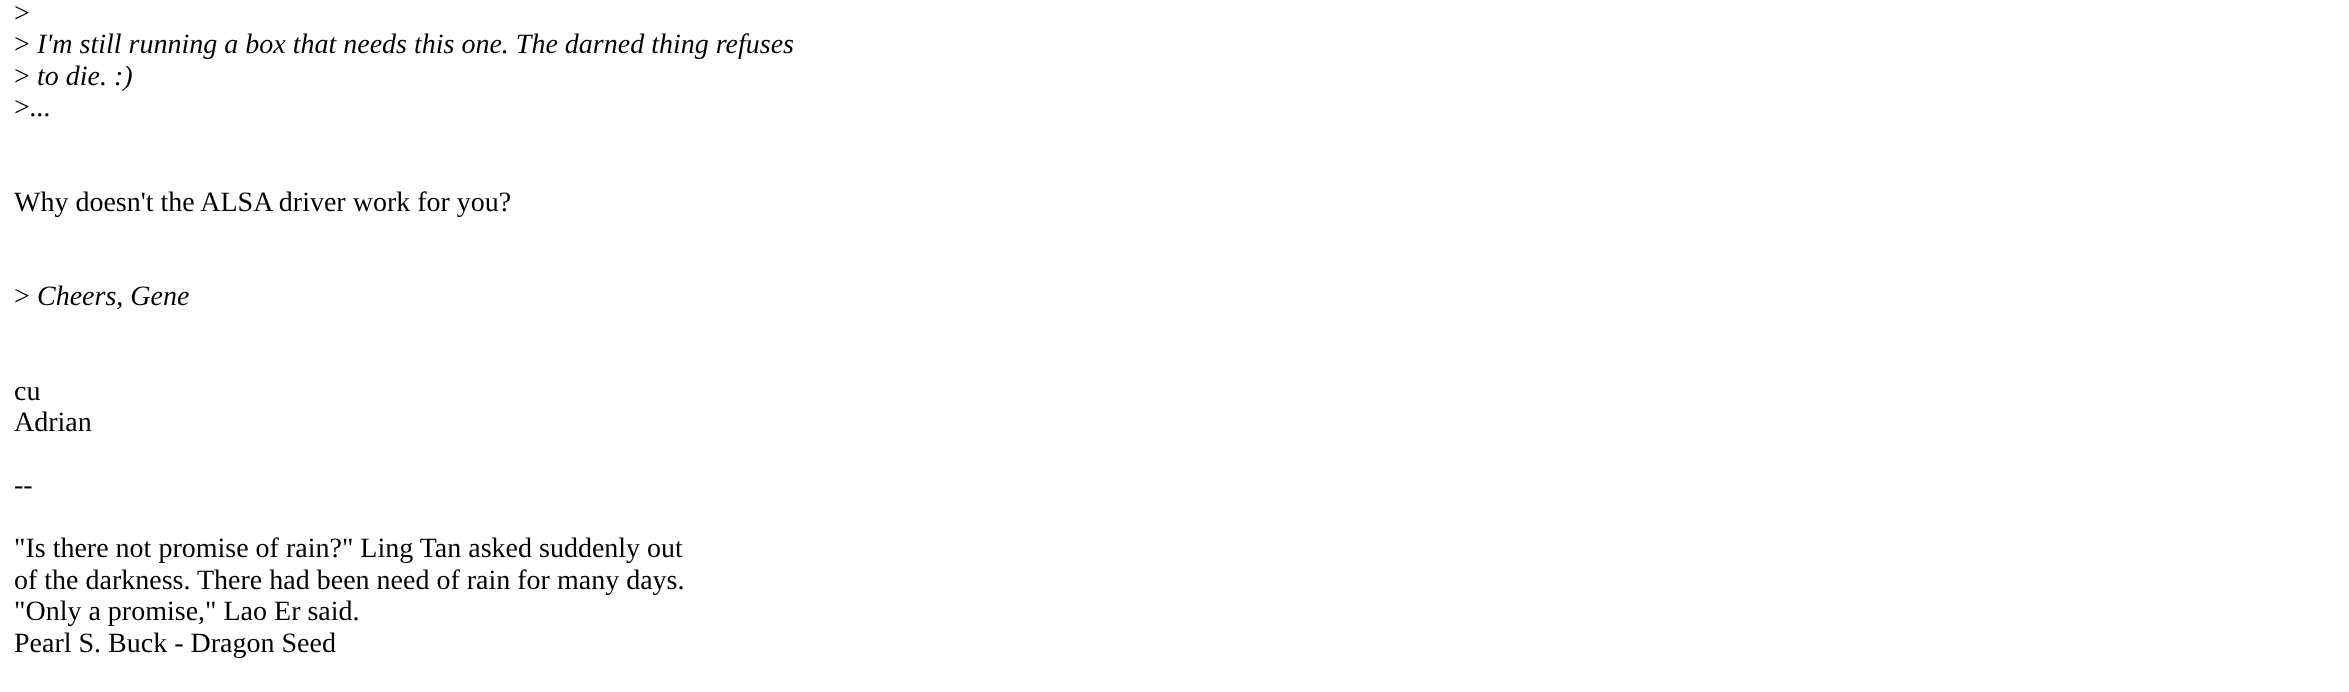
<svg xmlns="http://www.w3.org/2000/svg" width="2349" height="692">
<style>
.a{font:28px Liberation Serif;fill:#000}
.b{font:italic 28px Liberation Serif;fill:#000}
</style>
<rect width="100%" height="100%" fill="#fff"/>
<text class="a" x="14" y="22">&gt;</text>
<text class="a" x="14" y="53">&gt;</text>
<text class="b" x="37" y="53">I'm still running a box that needs this one. The darned thing refuses</text>
<text class="a" x="14" y="85">&gt;</text>
<text class="b" x="37" y="85">to die. :)</text>
<text class="a" x="14" y="116">&gt;</text>
<text class="b" x="30" y="116">...</text>
<text class="a" x="14" y="211">Why doesn't the ALSA driver work for you?</text>
<text class="a" x="14" y="305">&gt;</text>
<text class="b" x="37" y="305">Cheers, Gene</text>
<text class="a" x="14" y="400">cu</text>
<text class="a" x="14" y="431">Adrian</text>
<text class="a" x="14" y="494">--</text>
<text class="a" x="14" y="557">"Is there not promise of rain?" Ling Tan asked suddenly out</text>
<text class="a" x="14" y="589">of the darkness. There had been need of rain for many days.</text>
<text class="a" x="14" y="620">"Only a promise," Lao Er said.</text>
<text class="a" x="14" y="652">Pearl S. Buck - Dragon Seed</text>
</svg>
